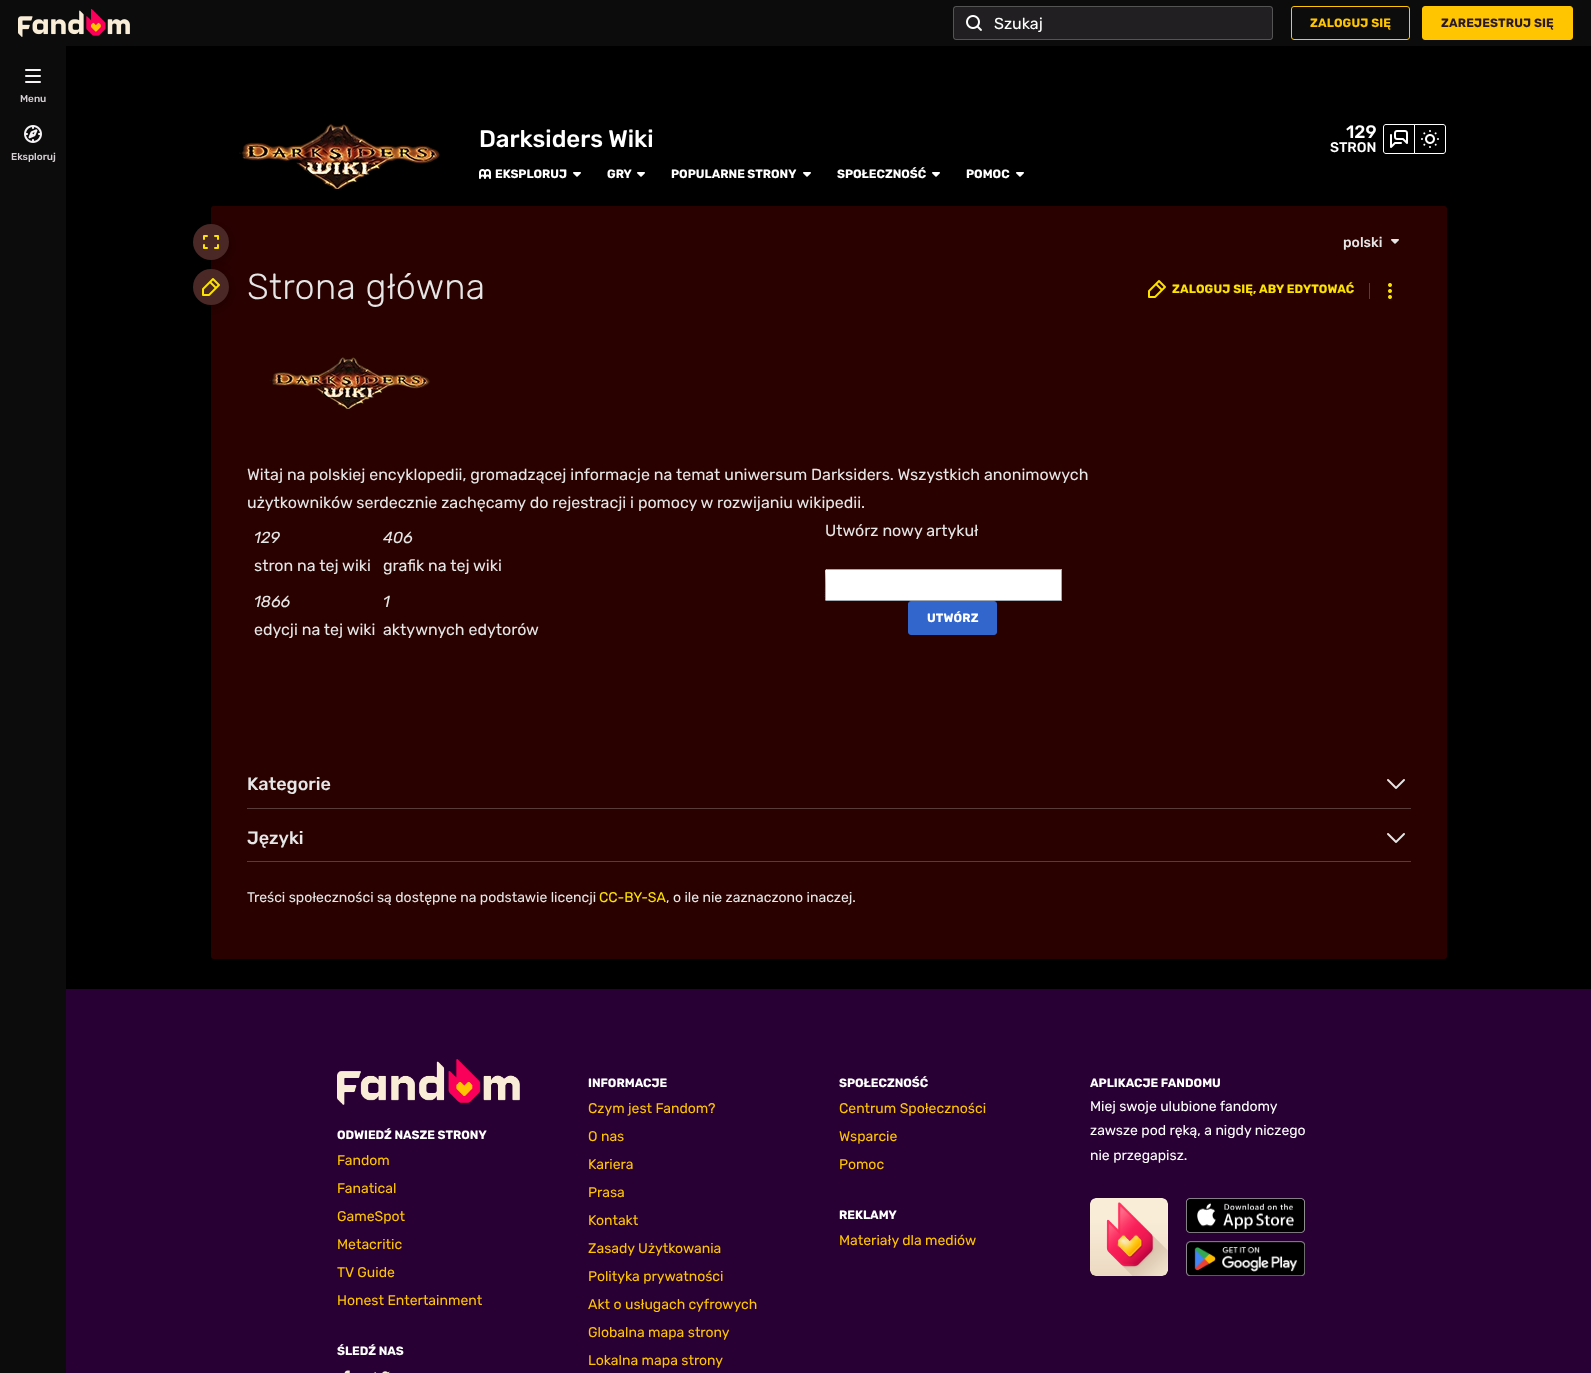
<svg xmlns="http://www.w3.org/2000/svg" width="1591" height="1373">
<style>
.a{font:16px Rubik;fill:#fff}
.b{font:bold 12px Rubik;letter-spacing:0.15px;fill:#ffc500}
.c{font:bold 12px Rubik;letter-spacing:0.15px;fill:#291927}
.d{font:500 10px Rubik;fill:#d6d0d5}
.e{font:500 24px Rubik;fill:#fff}
.f{font:500 18px Rubik;fill:#fff}
.g{font:500 14px Rubik;fill:#fff}
.h{font:bold 12px Rubik;fill:#fff}
.i{font:500 14px Rubik;fill:#e6e6e6}
.j{font:300 36px Rubik;letter-spacing:0.25px;fill:#e6e6e6}
.k{font:bold 12px Rubik;letter-spacing:0.15px;fill:#fce300}
.l{font:16px Rubik;fill:#e6e6e6}
.m{font:italic 16px Rubik;fill:#e6e6e6}
.n{font:bold 12px Rubik;letter-spacing:0.15px;fill:#fff}
.o{font:500 18px Rubik;fill:#e6e6e6}
.p{font:14px Rubik;fill:#e6e6e6}
.q{font:14px Rubik;fill:#fce300}
.r{font:14px Rubik;fill:#ffc500}
.s{font:14px Rubik;fill:#fff}
</style>
<rect width="100%" height="100%" fill="#000"/>
<path fill="#0c0c0c" d="M0 0h1591v46H0z"/>
<image href="1.png" x="18" y="9" width="112" height="28"/>
<rect fill="#211f21" x="953" y="6" width="320" height="34" rx="3"/>
<rect fill="none" stroke="#f5f3f540" x="953.5" y="6.5" width="319" height="33" rx="2.5"/>
<image href="2.png" x="966" y="15" width="16" height="16"/>
<rect fill="none" stroke="#ffc500" x="1291.5" y="6.5" width="118" height="33" rx="2.5"/>
<rect fill="#ffc500" stroke="#ffc500" x="1422.5" y="6.5" width="150" height="33" rx="2.5"/>
<path fill="#0c0c0c" d="M0 46h66v1327H0z"/>
<image href="3.png" x="25" y="69" width="16" height="14"/>
<image href="4.png" x="24" y="125" width="18" height="18"/>
<image href="5.png" x="239" y="124" width="201" height="65"/>
<path fill="none" stroke="#fff" d="M1386 124.5h28.5v29h-28.5c-1.5 0-2.5-1-2.5-2.5v-24c0-1.5 1-2.5 2.5-2.5z"/>
<image href="6.png" x="1390" y="130" width="18" height="18"/>
<path fill="none" stroke="#fff" d="M1414.5 124.5h28.5c1.5 0 2.5 1 2.5 2.5v24c0 1.5-1 2.5-2.5 2.5h-28.5z"/>
<image href="7.png" x="1421" y="130" width="18" height="18"/>
<image href="8.png" x="479" y="169" width="12" height="10"/>
<image href="9.png" x="573" y="172" width="8" height="5"/>
<image href="9.png" x="637" y="172" width="8" height="5"/>
<image href="9.png" x="803" y="172" width="8" height="5"/>
<image href="9.png" x="932" y="172" width="8" height="5"/>
<image href="9.png" x="1016" y="172" width="8" height="5"/>
<rect fill="#290200" x="211" y="206" width="1236" height="753" rx="3"/>
<rect fill="#0000004d" filter="blur(6px)" x="193" y="227" width="36" height="36" rx="18"/>
<circle fill="#492826" cx="211" cy="242" r="18"/>
<image href="10.png" x="203" y="235" width="16" height="14"/>
<rect fill="#0000004d" filter="blur(6px)" x="193" y="272" width="36" height="36" rx="18"/>
<circle fill="#492826" cx="211" cy="287" r="18"/>
<image href="11.png" x="202" y="278" width="18" height="18"/>
<image href="12.png" x="1391" y="239" width="8" height="5"/>
<image href="13.png" x="1148" y="280" width="18" height="18"/>
<path fill="#583b3a" d="M1369 283h1v16H1369z"/>
<image href="14.png" x="1388" y="283" width="4" height="16"/>
<image href="15.png" x="269" y="357" width="161" height="52"/>
<path fill="#fff" d="M827 569h235v32h-235c-1 0-2-1-2-2v-28c0-1 1-2 2-2z"/>
<path fill="#a2a9b1" fill-rule="evenodd" d="M827 569l-1 1c-1 0-1 27-1 29l1 2h236v-32zm-1 1v30h235v-30z"/>
<rect fill="#36c" stroke="#36c" x="908.5" y="601.5" width="88" height="33" rx="2.5"/>
<path fill="#583b3a" d="M247 808h1164v1H247z"/>
<image href="16.png" x="1387" y="779" width="18" height="10"/>
<path fill="#583b3a" d="M247 861h1164v1H247z"/>
<image href="16.png" x="1387" y="833" width="18" height="10"/>
<path fill="#280033" d="M66 989h1525v384H66z"/>
<image href="17.png" x="337" y="1059" width="183" height="46"/>
<image href="18.png" x="344" y="1370" width="6" height="3"/>
<image href="19.png" x="374" y="1371" width="17" height="2"/>
<image href="20.png" x="1090" y="1198" width="78" height="78"/>
<image href="21.png" x="1186" y="1198" width="119" height="35"/>
<image href="22.png" x="1186" y="1241" width="119" height="35"/>
<text class="a" x="994" y="29">Szukaj</text>
<text class="b" x="1310" y="27">ZALOGUJ SIĘ</text>
<text class="c" x="1441" y="27">ZAREJESTRUJ SIĘ</text>
<text class="d" x="20" y="102">Menu</text>
<text class="d" x="11" y="160">Eksploruj</text>
<text class="e" x="479" y="147">Darksiders Wiki</text>
<text class="f" x="1346" y="138">129</text>
<text class="g" x="1330" y="152">STRON</text>
<text class="h" x="495" y="178">EKSPLORUJ</text>
<text class="h" x="607" y="178">GRY</text>
<text class="h" x="671" y="178">POPULARNE STRONY</text>
<text class="h" x="837" y="178">SPOŁECZNOŚĆ</text>
<text class="h" x="966" y="178">POMOC</text>
<text class="i" x="1343" y="247">polski</text>
<text class="j" x="247" y="299">Strona główna</text>
<text class="k" x="1172" y="293">ZALOGUJ SIĘ, ABY EDYTOWAĆ</text>
<text class="l" x="247" y="480">Witaj na polskiej encyklopedii, gromadzącej informacje na temat uniwersum Darksiders. Wszystkich anonimowych</text>
<text class="l" x="247" y="508">użytkowników serdecznie zachęcamy do rejestracji i pomocy w rozwijaniu wikipedii.</text>
<text class="m" x="254" y="543">129</text>
<text class="l" x="254" y="571">stron na tej wiki</text>
<text class="m" x="383" y="543">406</text>
<text class="l" x="383" y="571">grafik na tej wiki</text>
<text class="m" x="254" y="607">1866</text>
<text class="l" x="254" y="635">edycji na tej wiki</text>
<text class="m" x="383" y="607">1</text>
<text class="l" x="383" y="635">aktywnych edytorów</text>
<text class="l" x="825" y="536">Utwórz nowy artykuł</text>
<text class="n" x="927" y="622">UTWÓRZ</text>
<text class="o" x="247" y="790">Kategorie</text>
<text class="o" x="247" y="844">Języki</text>
<text class="p" x="247" y="902">Treści społeczności są dostępne na podstawie licencji</text>
<text class="q" x="599" y="902">CC-BY-SA</text>
<text class="p" x="666" y="902">, o ile nie zaznaczono inaczej.</text>
<text class="h" x="337" y="1139">ODWIEDŹ NASZE STRONY</text>
<text class="r" x="337" y="1165">Fandom</text>
<text class="r" x="337" y="1193">Fanatical</text>
<text class="r" x="337" y="1221">GameSpot</text>
<text class="r" x="337" y="1249">Metacritic</text>
<text class="r" x="337" y="1277">TV Guide</text>
<text class="r" x="337" y="1305">Honest Entertainment</text>
<text class="h" x="337" y="1355">ŚLEDŹ NAS</text>
<text class="h" x="588" y="1087">INFORMACJE</text>
<text class="r" x="588" y="1113">Czym jest Fandom?</text>
<text class="r" x="588" y="1141">O nas</text>
<text class="r" x="588" y="1169">Kariera</text>
<text class="r" x="588" y="1197">Prasa</text>
<text class="r" x="588" y="1225">Kontakt</text>
<text class="r" x="588" y="1253">Zasady Użytkowania</text>
<text class="r" x="588" y="1281">Polityka prywatności</text>
<text class="r" x="588" y="1309">Akt o usługach cyfrowych</text>
<text class="r" x="588" y="1337">Globalna mapa strony</text>
<text class="r" x="588" y="1365">Lokalna mapa strony</text>
<text class="h" x="839" y="1087">SPOŁECZNOŚĆ</text>
<text class="r" x="839" y="1113">Centrum Społeczności</text>
<text class="r" x="839" y="1141">Wsparcie</text>
<text class="r" x="839" y="1169">Pomoc</text>
<text class="h" x="839" y="1219">REKLAMY</text>
<text class="r" x="839" y="1245">Materiały dla mediów</text>
<text class="h" x="1090" y="1087">APLIKACJE FANDOMU</text>
<text class="s" x="1090" y="1111">Miej swoje ulubione fandomy</text>
<text class="s" x="1090" y="1135">zawsze pod ręką, a nigdy niczego</text>
<text class="s" x="1090" y="1160">nie przegapisz.</text>
</svg>
